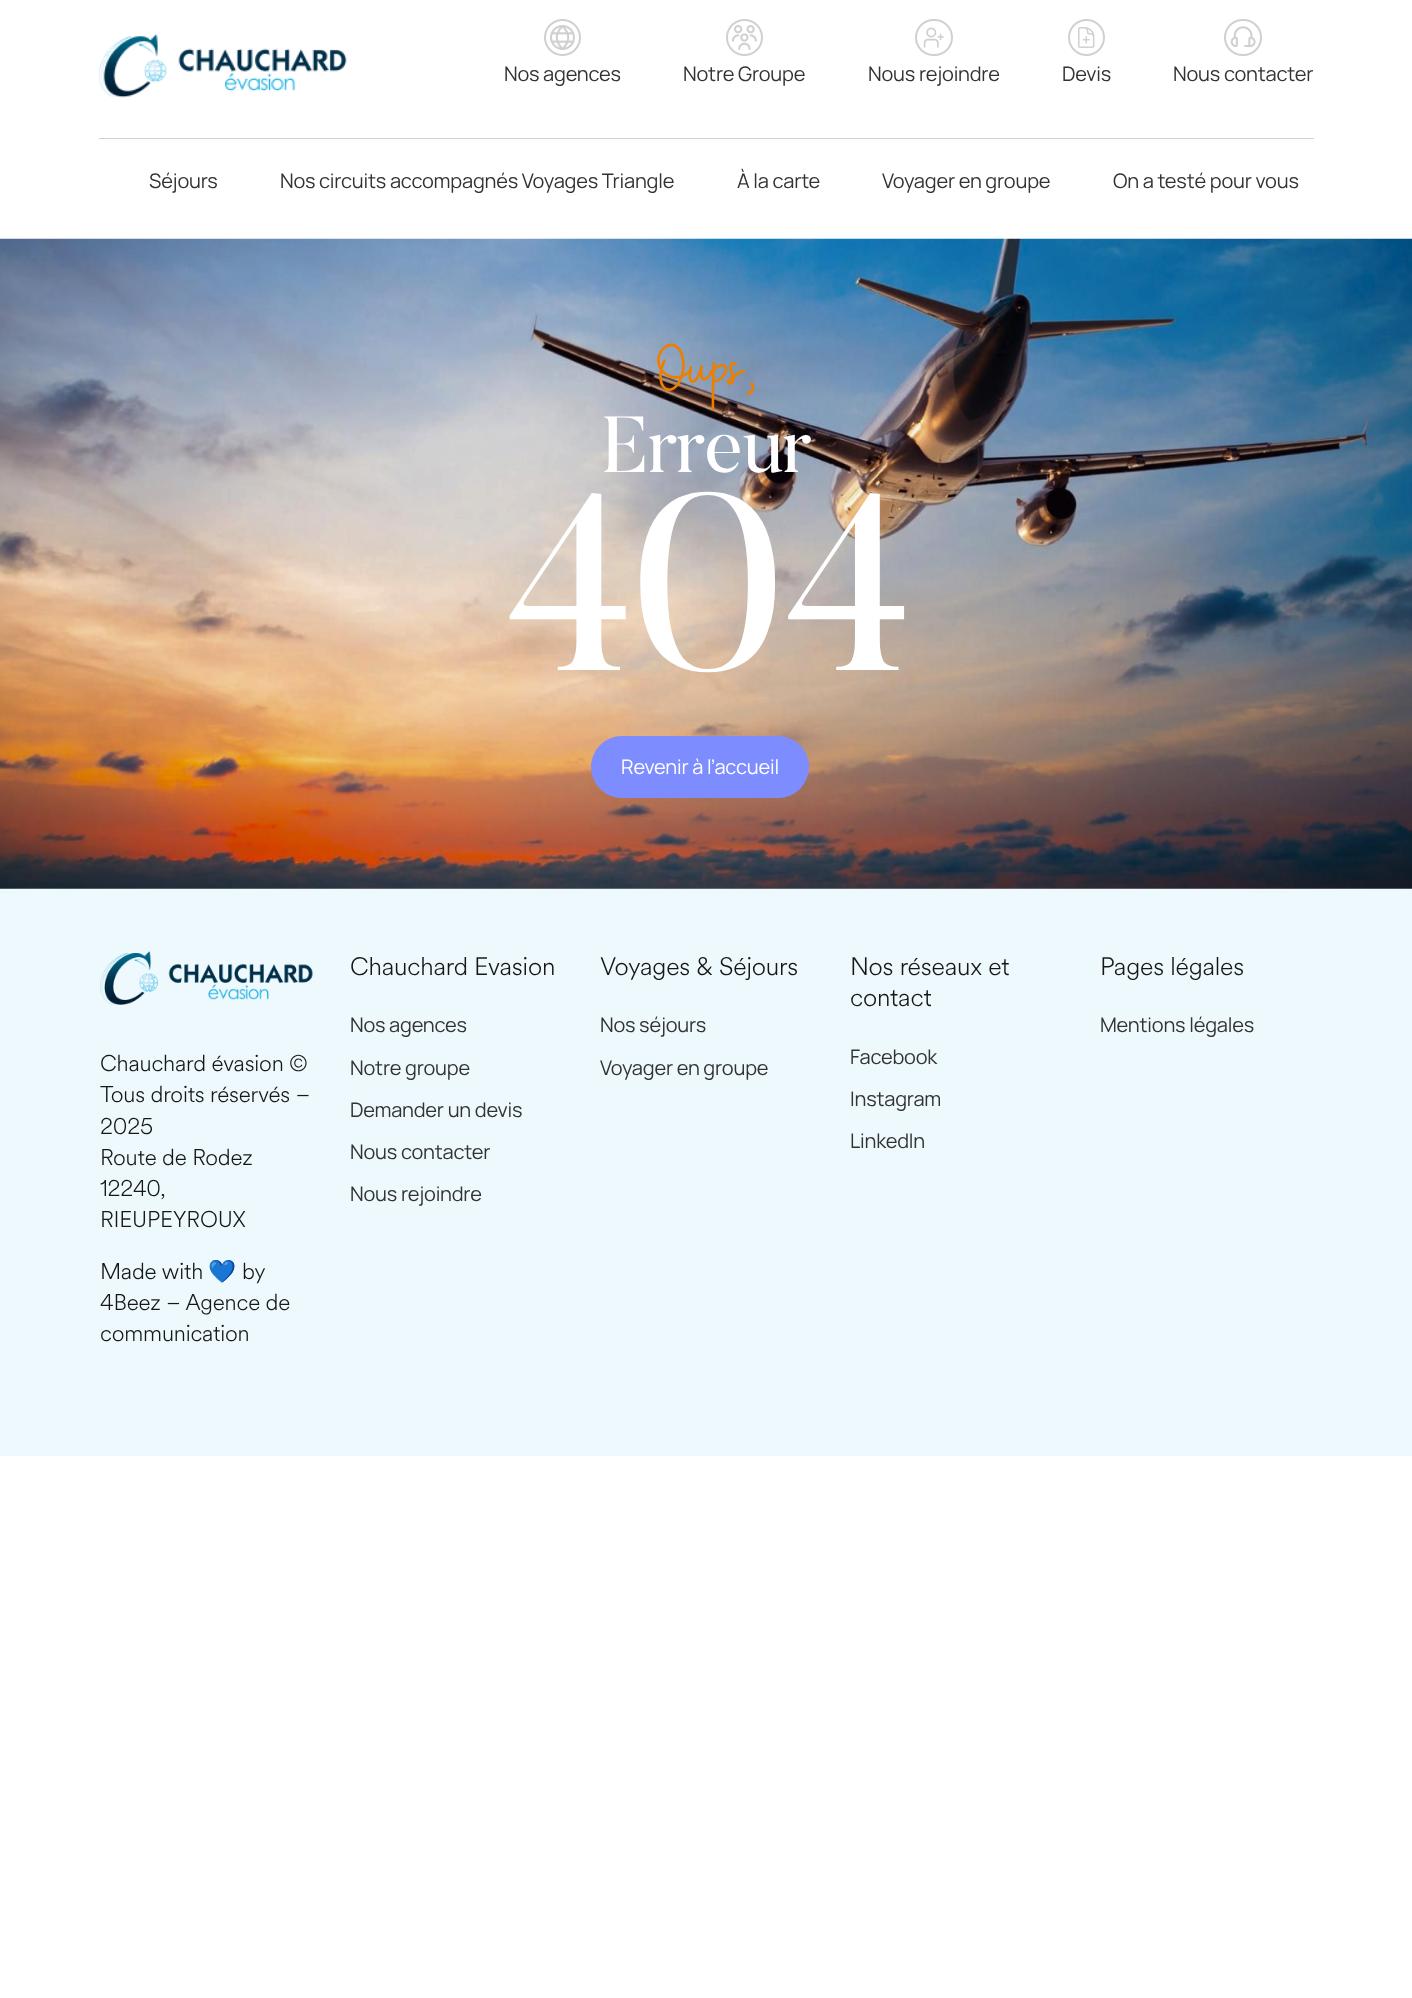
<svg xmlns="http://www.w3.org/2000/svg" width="1412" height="1998">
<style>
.a{font:20px Manrope;letter-spacing:-0.2px;fill:#333}
.b{font:66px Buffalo;letter-spacing:-0.5px;fill:#ec7f00}
.c{font:79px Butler;letter-spacing:-0.75px;fill:#fff}
.d{font:250px Butler;letter-spacing:-2.5px;fill:#fff}
.e{font:20px Manrope;letter-spacing:-0.2px;fill:#fff}
.f{font:300 22.5px Circular;letter-spacing:-0.2px;fill:#171717}
.g{font:22.5px Noto Color Emoji;letter-spacing:-0.2px;fill:#171717}
.h{font:300 25px Circular;letter-spacing:-0.2px;fill:#171717}
</style>
<rect width="100%" height="100%" fill="#fff"/>
<path fill="#d0d0d0" d="M99 138h1215v1H99z"/>
<image href="1.png" x="98" y="33" width="249" height="65"/>
<image href="2.png" x="544" y="19" width="37" height="37"/>
<image href="3.png" x="726" y="19" width="37" height="37"/>
<image href="4.png" x="915" y="19" width="38" height="37"/>
<image href="5.png" x="1068" y="19" width="37" height="37"/>
<image href="6.png" x="1224" y="19" width="38" height="37"/>
<image href="7.png" x="0" y="238" width="1412" height="651"/>
<rect fill="#7d8dff" x="591" y="736" width="218" height="62" rx="31"/>
<path fill="#edf9fd" d="M0 889h1412v567H0z"/>
<image href="8.png" x="100" y="951" width="213" height="54"/>
<text class="a" x="504" y="81">Nos agences</text>
<text class="a" x="683" y="81">Notre Groupe</text>
<text class="a" x="868" y="81">Nous rejoindre</text>
<text class="a" x="1062" y="81">Devis</text>
<text class="a" x="1173" y="81">Nous contacter</text>
<text class="a" x="149" y="188">Séjours</text>
<text class="a" x="280" y="188">Nos circuits accompagnés Voyages Triangle</text>
<text class="a" x="737" y="188">À la carte</text>
<text class="a" x="882" y="188">Voyager en groupe</text>
<text class="a" x="1113" y="188">On a testé pour vous</text>
<text class="b" x="657" y="391">Oups,</text>
<text class="c" x="602" y="472">Erreur</text>
<text class="d" x="503" y="670">404</text>
<text class="e" x="621" y="774">Revenir à l’accueil</text>
<text class="f" x="100" y="1071">Chauchard évasion ©</text>
<text class="f" x="100" y="1102">Tous droits réservés –</text>
<text class="f" x="100" y="1134">2025</text>
<text class="f" x="100" y="1165">Route de Rodez</text>
<text class="f" x="100" y="1196">12240,</text>
<text class="f" x="100" y="1227">RIEUPEYROUX</text>
<text class="f" x="100" y="1279">Made with</text>
<text class="g" x="208" y="1279">💙</text>
<text class="f" x="242" y="1279">by</text>
<text class="f" x="100" y="1310">4Beez – Agence de</text>
<text class="f" x="100" y="1341">communication</text>
<text class="h" x="350" y="975">Chauchard Evasion</text>
<text class="a" x="350" y="1032">Nos agences</text>
<text class="a" x="350" y="1075">Notre groupe</text>
<text class="a" x="350" y="1117">Demander un devis</text>
<text class="a" x="350" y="1159">Nous contacter</text>
<text class="a" x="350" y="1201">Nous rejoindre</text>
<text class="h" x="600" y="975">Voyages &amp; Séjours</text>
<text class="a" x="600" y="1032">Nos séjours</text>
<text class="a" x="600" y="1075">Voyager en groupe</text>
<text class="h" x="850" y="975">Nos réseaux et</text>
<text class="h" x="850" y="1006">contact</text>
<text class="a" x="850" y="1064">Facebook</text>
<text class="a" x="850" y="1106">Instagram</text>
<text class="a" x="850" y="1148">LinkedIn</text>
<text class="h" x="1100" y="975">Pages légales</text>
<text class="a" x="1100" y="1032">Mentions légales</text>
</svg>
